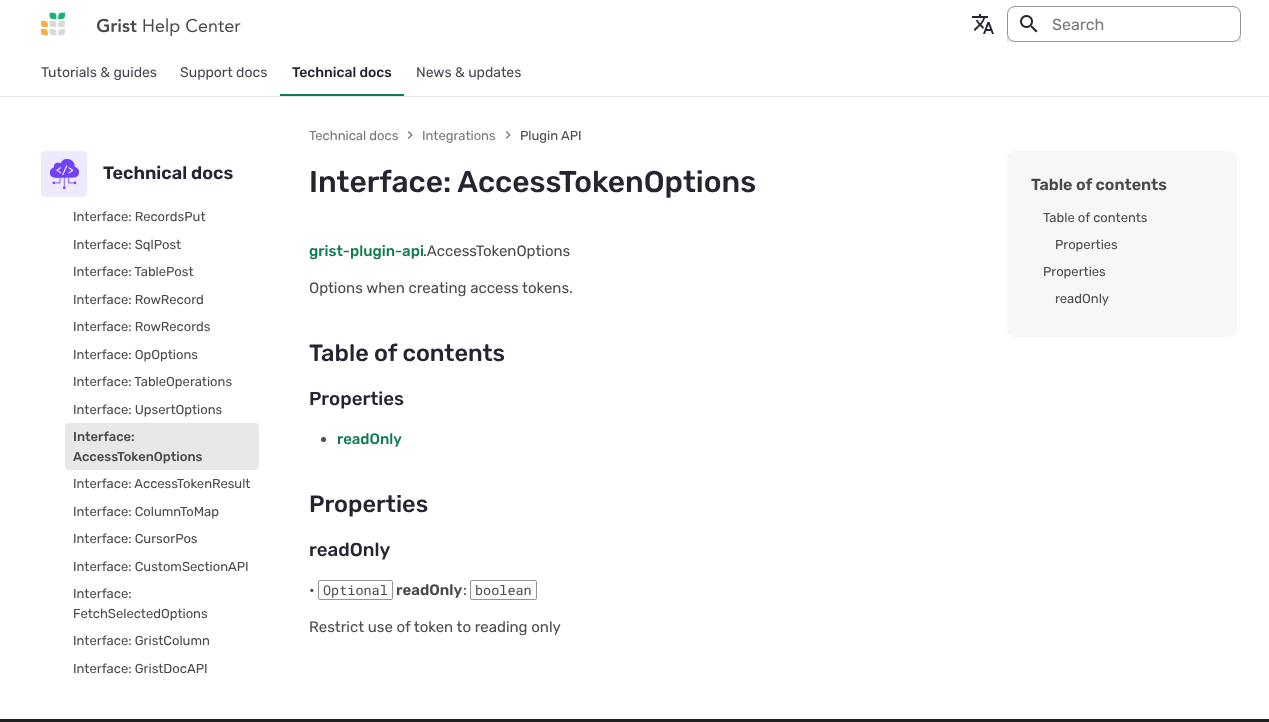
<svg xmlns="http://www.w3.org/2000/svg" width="1269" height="722">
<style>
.a{font:300 16px 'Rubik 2';fill:#76767c}
.b{font:300 14px 'Rubik 2';fill:#464651}
.c{font:300 14px Rubik;fill:#252532}
.d{font:600 18px Rubik;fill:#252532}
.e{font:300 13px 'Rubik 2';fill:#4a4a4a}
.f{font:300 13px Rubik;fill:#4a4a4a}
.g{font:300 13px 'Rubik 2';fill:#76767c}
.h{font:300 30px Rubik;fill:#252532}
.i{font:300 15px Rubik;fill:#0f7b51}
.j{font:300 15px 'Rubik 2';fill:#4a4a4a}
.k{font:300 23.5px Rubik;fill:#252532}
.l{font:300 18.75px Rubik;fill:#252532}
.m{font:13.5px Roboto Mono;fill:#4a4a4a}
.n{font:600 15px Rubik;fill:#4a4a4a}
.o{font:600 16px Rubik;fill:#4a4a4a}
</style>
<rect width="100%" height="100%" fill="#fff"/>
<image href="1.png" x="41" y="12" width="24" height="24"/>
<image href="2.png" x="97" y="18" width="144" height="18"/>
<image href="3.png" x="972" y="14" width="22" height="20"/>
<path fill="#e8e8e8" d="M1015 6h218c4.5 0 8 3.5 8 8v28h-234v-28c0-4.5 3.5-8 8-8z"/>
<rect fill="#fff" stroke="#93939a" x="1007.5" y="6.5" width="233" height="35" rx="7.5"/>
<image href="4.png" x="1020" y="15" width="18" height="18"/>
<path fill="#0f7b51" d="M280 94h124v2H280z"/>
<path fill="#e8e8e8" d="M0 96h1269v1H0z"/>
<rect fill="#efe9fd" x="41" y="151" width="46" height="46" rx="4"/>
<image href="5.png" x="50" y="159" width="29" height="30"/>
<rect fill="#e8e8e8" x="65" y="423" width="194" height="47" rx="4"/>
<image href="6.png" x="407" y="131" width="6" height="8"/>
<image href="6.png" x="505" y="131" width="6" height="8"/>
<circle fill="#4a4a4a" cx="323.5" cy="439.5" r="2.5"/>
<rect fill="none" stroke="#93939a" x="318.5" y="580.5" width="74" height="19" rx="1.5"/>
<rect fill="none" stroke="#93939a" x="470.5" y="580.5" width="66" height="19" rx="1.5"/>
<rect fill="#f7f7f7" x="1007" y="151" width="230" height="186" rx="8"/>
<path fill="#212121" d="M0 719h1269v3H0z"/>
<text class="a" x="1052" y="30">Search</text>
<text class="b" x="41" y="77">Tutorials &amp; guides</text>
<text class="b" x="180" y="77">Support docs</text>
<text class="c" x="292" y="77">Technical docs</text>
<text class="b" x="416" y="77">News &amp; updates</text>
<text class="d" x="103" y="179">Technical docs</text>
<text class="e" x="73" y="221">Interface: RecordsPut</text>
<text class="e" x="73" y="249">Interface: SqlPost</text>
<text class="e" x="73" y="276">Interface: TablePost</text>
<text class="e" x="73" y="304">Interface: RowRecord</text>
<text class="e" x="73" y="331">Interface: RowRecords</text>
<text class="e" x="73" y="359">Interface: OpOptions</text>
<text class="e" x="73" y="386">Interface: TableOperations</text>
<text class="e" x="73" y="414">Interface: UpsertOptions</text>
<text class="f" x="73" y="441">Interface:</text>
<text class="f" x="73" y="461">AccessTokenOptions</text>
<text class="e" x="73" y="488">Interface: AccessTokenResult</text>
<text class="e" x="73" y="516">Interface: ColumnToMap</text>
<text class="e" x="73" y="543">Interface: CursorPos</text>
<text class="e" x="73" y="571">Interface: CustomSectionAPI</text>
<text class="e" x="73" y="598">Interface:</text>
<text class="e" x="73" y="618">FetchSelectedOptions</text>
<text class="e" x="73" y="645">Interface: GristColumn</text>
<text class="e" x="73" y="673">Interface: GristDocAPI</text>
<text class="g" x="309" y="140">Technical docs</text>
<text class="g" x="422" y="140">Integrations</text>
<text class="e" x="520" y="140">Plugin API</text>
<text class="h" x="309" y="192">Interface: AccessTokenOptions</text>
<text class="i" x="309" y="256">grist-plugin-api</text>
<text class="j" x="423" y="256">.AccessTokenOptions</text>
<text class="j" x="309" y="293">Options when creating access tokens.</text>
<text class="k" x="309" y="361">Table of contents</text>
<text class="l" x="309" y="405">Properties</text>
<text class="i" x="337" y="444">readOnly</text>
<text class="k" x="309" y="512">Properties</text>
<text class="l" x="309" y="556">readOnly</text>
<text class="j" x="309" y="595">•</text>
<text class="m" x="323" y="595">Optional</text>
<text class="n" x="396" y="595">readOnly</text>
<text class="j" x="463" y="595">:</text>
<text class="m" x="475" y="595">boolean</text>
<text class="j" x="309" y="632">Restrict use of token to reading only</text>
<text class="o" x="1031" y="190">Table of contents</text>
<text class="e" x="1043" y="222">Table of contents</text>
<text class="e" x="1055" y="249">Properties</text>
<text class="e" x="1043" y="276">Properties</text>
<text class="e" x="1055" y="303">readOnly</text>
</svg>
